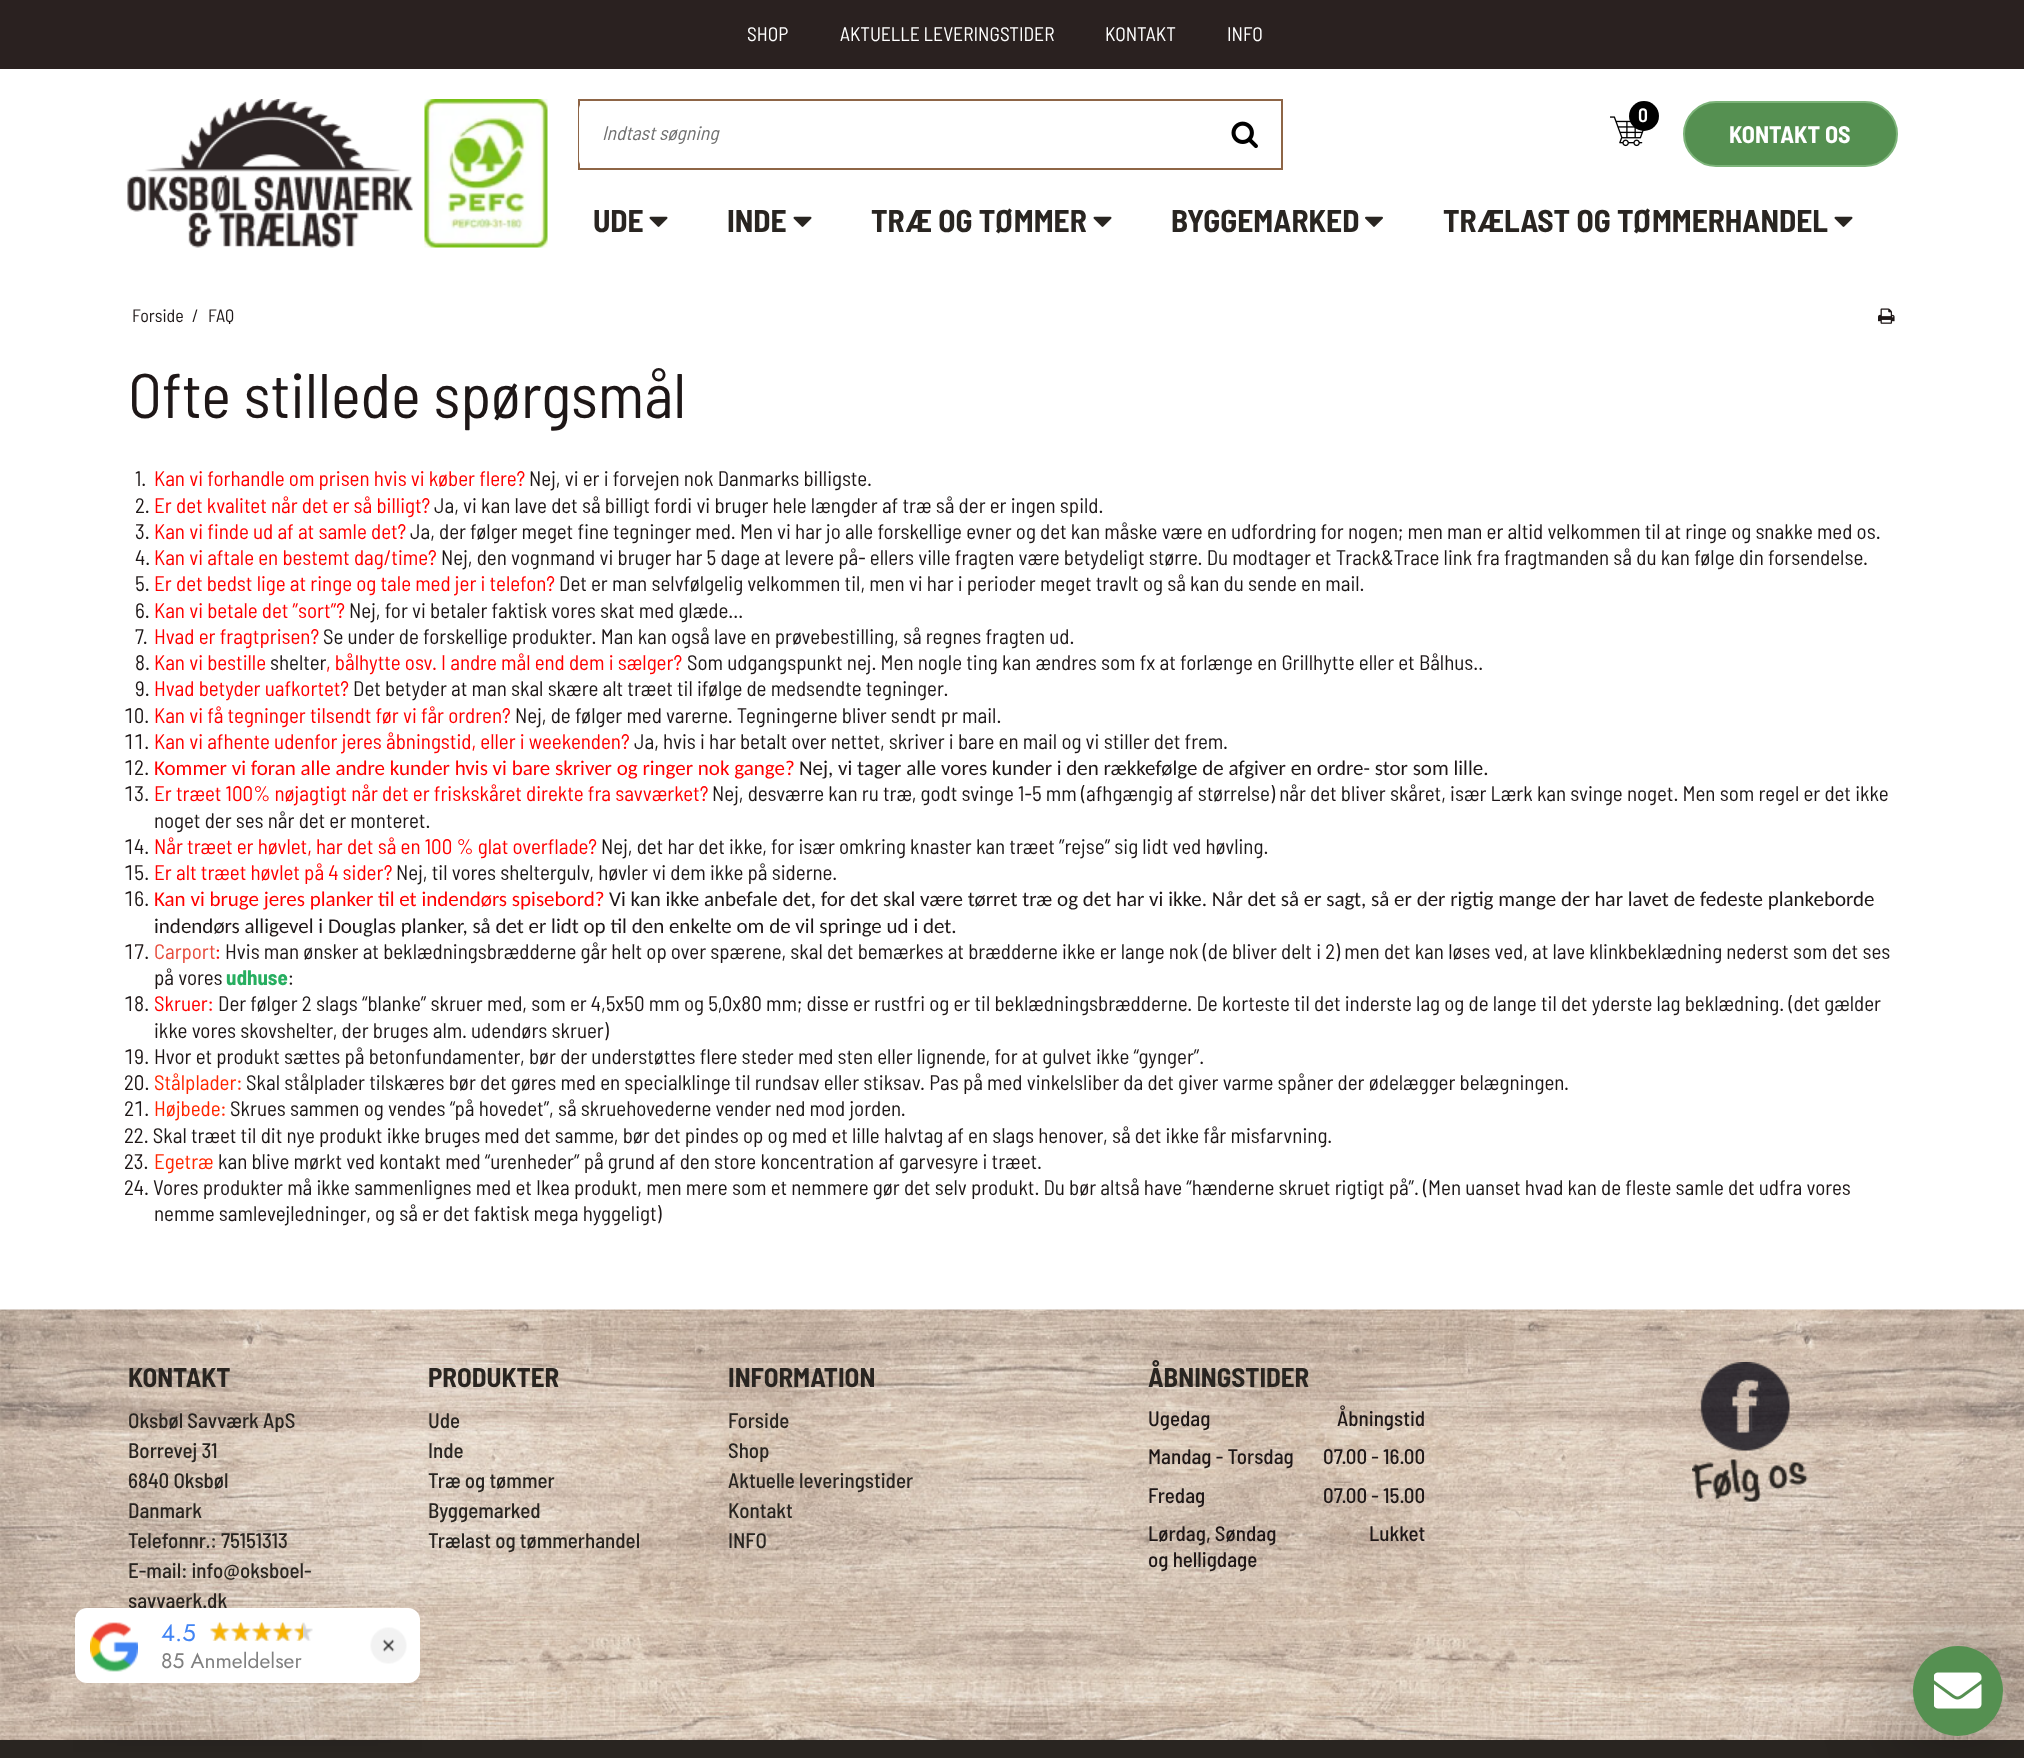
<svg xmlns="http://www.w3.org/2000/svg" width="2024" height="1758">
<style>
.a{font:19.5px Barlow Semi Condensed;fill:#fff}
.b{font:italic 19.5px Barlow Semi Condensed;fill:#707070}
.c{font:600 19.5px Barlow Semi Condensed;fill:#fff}
.d{font:bold 24px Barlow Semi Condensed;fill:#fff}
.e{font:bold 31.5px Barlow Semi Condensed;fill:#292521}
.f{font:18px Barlow Semi Condensed;fill:#1e1717}
.g{font:63px Barlow Semi Condensed;fill:#1e1717}
.h{font:21px Barlow Semi Condensed;fill:#1e1717}
.i{font:21px Barlow Semi Condensed;fill:#f00}
.j{font:21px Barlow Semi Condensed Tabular;fill:#1e1717}
.k{font:21px Carlito;fill:#f00}
.l{font:21px Carlito;fill:#1e1717}
.m{font:21px Barlow Semi Condensed;fill:#e74c3c}
.n{font:bold 21px Barlow Semi Condensed;fill:#27ae60}
.o{font:21px Barlow Semi Condensed;fill:#ff2600}
.p{font:bold 27px Barlow Semi Condensed;fill:#292521}
.q{font:500 21px Barlow Semi Condensed;fill:#292521}
.r{font:500 21px Barlow Semi Condensed;fill:#1e1717}
.s{font:24px Jost;fill:#4285f4}
.t{font:21px Jost;fill:#808080}
</style>
<defs>
<clipPath id="clip1"><path d="M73 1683h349v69H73z"/></clipPath>
</defs>
<rect width="100%" height="100%" fill="#fff"/>
<path fill="#2a2120" d="M0 0h2024v69H0z"/>
<image href="1.png" x="127" y="99" width="421" height="149"/>
<path fill="none" stroke="#8e6546" stroke-width="2" d="M579 100h703v69H579z"/>
<path fill="#fff" d="M587 101h624v67h-624c-4.5 0-8-3.5-8-8v-51c0-4.5 3.5-8 8-8z"/>
<image href="2.png" x="1231" y="121" width="27" height="27"/>
<image href="3.png" x="1610" y="116" width="34" height="31"/>
<circle fill="#000" cx="1644" cy="116" r="15"/>
<rect fill="#559051" stroke="#7db47a" stroke-width="2" x="1684" y="102" width="213" height="64" rx="32"/>
<image href="4.png" x="649" y="216" width="19" height="11"/>
<image href="4.png" x="793" y="216" width="19" height="11"/>
<image href="4.png" x="1093" y="216" width="19" height="11"/>
<image href="5.png" x="1365" y="216" width="18" height="11"/>
<image href="4.png" x="1834" y="216" width="19" height="11"/>
<image href="6.png" x="1878" y="308" width="17" height="16"/>
<image href="7.png" x="0" y="1309" width="2024" height="431"/>
<image href="8.png" x="1692" y="1362" width="116" height="140"/>
<path fill="#292521" d="M0 1740h2024v18H0z"/>
<rect fill="#00000080" filter="blur(45px)" x="1913" y="1646" width="90" height="90" rx="45"/>
<circle fill="#559051" cx="1958" cy="1691" r="45"/>
<image href="9.png" x="1934" y="1672" width="48" height="37"/>
<g clip-path="url(#clip1)">
<path fill="#0000000d" filter="blur(25px)" d="M75 1671h345v75H75z"/>
</g>
<text class="a" x="747" y="41">SHOP</text>
<text class="a" x="840" y="41">AKTUELLE LEVERINGSTIDER</text>
<text class="a" x="1105" y="41">KONTAKT</text>
<text class="a" x="1227" y="41">INFO</text>
<text class="b" x="602" y="140">Indtast søgning</text>
<text class="c" x="1638" y="122">0</text>
<text class="d" x="1729" y="143">KONTAKT OS</text>
<text class="e" x="593" y="232">UDE</text>
<text class="e" x="727" y="232">INDE</text>
<text class="e" x="871" y="232">TRÆ OG TØMMER</text>
<text class="e" x="1171" y="232">BYGGEMARKED</text>
<text class="e" x="1443" y="232">TRÆLAST OG TØMMERHANDEL</text>
<text class="f" x="132" y="322">Forside</text>
<text class="f" x="192" y="322">/</text>
<text class="f" x="208" y="322">FAQ</text>
<text class="g" x="128" y="418">Ofte stillede spørgsmål</text>
<text class="h" x="135" y="486">1.</text>
<text class="i" x="154" y="486">Kan vi forhandle om prisen hvis vi køber flere?</text>
<text class="h" x="529" y="486">Nej, vi er i forvejen nok Danmarks billigste.</text>
<text class="h" x="135" y="513">2.</text>
<text class="i" x="154" y="513">Er det kvalitet når det er så billigt?</text>
<text class="h" x="434" y="513">Ja, vi kan lave det så billigt fordi vi bruger hele længder af træ så der er ingen spild.</text>
<text class="h" x="135" y="539">3.</text>
<text class="i" x="154" y="539">Kan vi finde ud af at samle det?</text>
<text class="h" x="410" y="539">Ja, der følger meget fine tegninger med. Men vi har jo alle forskellige evner og det kan måske være en udfordring for nogen; men man er altid velkommen til at ringe og snakke med os.</text>
<text class="h" x="135" y="565">4.</text>
<text class="i" x="154" y="565">Kan vi aftale en bestemt dag/time?</text>
<text class="h" x="441" y="565">Nej, den vognmand vi bruger har 5 dage at levere på- ellers ville fragten være betydeligt større. Du modtager et Track&amp;Trace link fra fragtmanden så du kan følge din forsendelse.</text>
<text class="h" x="135" y="591">5.</text>
<text class="i" x="154" y="591">Er det bedst lige at ringe og tale med jer i telefon?</text>
<text class="h" x="559" y="591">Det er man selvfølgelig velkommen til, men vi har i perioder meget travlt og så kan du sende en mail.</text>
<text class="h" x="135" y="618">6.</text>
<text class="i" x="154" y="618">Kan vi betale det ”sort”?</text>
<text class="h" x="349" y="618">Nej, for vi betaler faktisk vores skat med glæde…</text>
<text class="h" x="135" y="644">7.</text>
<text class="i" x="154" y="644">Hvad er fragtprisen?</text>
<text class="h" x="323" y="644">Se under de forskellige produkter. Man kan også lave en prøvebestilling, så regnes fragten ud.</text>
<text class="h" x="135" y="670">8.</text>
<text class="i" x="154" y="670">Kan vi bestille</text>
<text class="h" x="270" y="670">shelter</text>
<text class="i" x="326" y="670">, bålhytte osv. I andre mål end dem i sælger?</text>
<text class="h" x="687" y="670">Som udgangspunkt nej. Men nogle ting kan ændres som fx at forlænge en Grillhytte eller et Bålhus..</text>
<text class="h" x="135" y="696">9.</text>
<text class="i" x="154" y="696">Hvad betyder uafkortet?</text>
<text class="h" x="353" y="696">Det betyder at man skal skære alt træet til ifølge de medsendte tegninger.</text>
<text class="j" x="124" y="723">10.</text>
<text class="i" x="154" y="723">Kan vi få tegninger tilsendt før vi får ordren?</text>
<text class="h" x="515" y="723">Nej, de følger med varerne. Tegningerne bliver sendt pr mail.</text>
<text class="j" x="124" y="749">11.</text>
<text class="i" x="154" y="749">Kan vi afhente udenfor jeres åbningstid, eller i weekenden?</text>
<text class="h" x="634" y="749">Ja, hvis i har betalt over nettet, skriver i bare en mail og vi stiller det frem.</text>
<text class="j" x="124" y="775">12.</text>
<text class="k" x="154" y="775">Kommer vi foran alle andre kunder hvis vi bare skriver og ringer nok gange?</text>
<text class="l" x="799" y="775">Nej, vi tager alle vores kunder i den rækkefølge de afgiver en ordre- stor som lille.</text>
<text class="j" x="124" y="801">13.</text>
<text class="i" x="154" y="801">Er træet 100% nøjagtigt når det er friskskåret direkte fra savværket?</text>
<text class="h" x="712" y="801">Nej, desværre kan ru træ, godt svinge 1-5 mm (afhgængig af størrelse) når det bliver skåret, især Lærk kan svinge noget. Men som regel er det ikke</text>
<text class="h" x="154" y="828">noget der ses når det er monteret.</text>
<text class="j" x="124" y="854">14.</text>
<text class="i" x="154" y="854">Når træet er høvlet, har det så en 100 % glat overflade?</text>
<text class="h" x="601" y="854">Nej, det har det ikke, for især omkring knaster kan træet ”rejse” sig lidt ved høvling.</text>
<text class="j" x="124" y="880">15.</text>
<text class="i" x="154" y="880">Er alt træet høvlet på 4 sider?</text>
<text class="h" x="396" y="880">Nej, til vores sheltergulv, høvler vi dem ikke på siderne.</text>
<text class="j" x="124" y="906">16.</text>
<text class="k" x="154" y="906">Kan vi bruge jeres planker til et indendørs spisebord?</text>
<text class="l" x="609" y="906">Vi kan ikke anbefale det, for det skal være tørret træ og det har vi ikke. Når det så er sagt, så er der rigtig mange der har lavet de fedeste plankeborde</text>
<text class="l" x="154" y="933">indendørs alligevel i Douglas planker, så det er lidt op til den enkelte om de vil springe ud i det.</text>
<text class="j" x="124" y="959">17.</text>
<text class="m" x="154" y="959">Carport</text>
<text class="i" x="215" y="959">:</text>
<text class="h" x="225" y="959">Hvis man ønsker at beklædningsbrædderne går helt op over spærene, skal det bemærkes at brædderne ikke er lange nok (de bliver delt i 2) men det kan løses ved, at lave klinkbeklædning nederst som det ses</text>
<text class="h" x="154" y="985">på vores</text>
<text class="n" x="226" y="985">udhuse</text>
<text class="h" x="288" y="985">:</text>
<text class="j" x="124" y="1011">18.</text>
<text class="i" x="154" y="1011">Skruer:</text>
<text class="h" x="218" y="1011">Der følger 2 slags “blanke” skruer med, som er 4,5x50 mm og 5,0x80 mm; disse er rustfri og er til beklædningsbrædderne. De korteste til det inderste lag og de lange til det yderste lag beklædning. (det gælder</text>
<text class="h" x="154" y="1038">ikke vores skovshelter, der bruges alm. udendørs skruer)</text>
<text class="j" x="124" y="1064">19.</text>
<text class="h" x="154" y="1064">Hvor et produkt sættes på betonfundamenter, bør der understøttes flere steder med sten eller lignende, for at gulvet ikke “gynger”.</text>
<text class="h" x="124" y="1090">20.</text>
<text class="o" x="154" y="1090">Stålplader:</text>
<text class="h" x="246" y="1090">Skal stålplader tilskæres bør det gøres med en specialklinge til rundsav eller stiksav. Pas på med vinkelsliber da det giver varme spåner der ødelægger belægningen.</text>
<text class="j" x="124" y="1116">21.</text>
<text class="o" x="154" y="1116">Højbede:</text>
<text class="h" x="230" y="1116">Skrues sammen og vendes “på hovedet”, så skruehovederne vender ned mod jorden.</text>
<text class="h" x="124" y="1143">22. Skal træet til dit nye produkt ikke bruges med det samme, bør det pindes op og med et lille halvtag af en slags henover, så det ikke får misfarvning.</text>
<text class="h" x="124" y="1169">23.</text>
<text class="o" x="154" y="1169">Egetræ</text>
<text class="h" x="218" y="1169">kan blive mørkt ved kontakt med “urenheder” på grund af den store koncentration af garvesyre i træet.</text>
<text class="h" x="124" y="1195">24. Vores produkter må ikke sammenlignes med et Ikea produkt, men mere som et nemmere gør det selv produkt. Du bør altså have “hænderne skruet rigtigt på”. (Men uanset hvad kan de fleste samle det udfra vores</text>
<text class="h" x="154" y="1221">nemme samlevejledninger, og så er det faktisk mega hyggeligt)</text>
<text class="p" x="128" y="1387">KONTAKT</text>
<text class="q" x="128" y="1428">Oksbøl Savværk ApS</text>
<text class="q" x="128" y="1458">Borrevej 31</text>
<text class="q" x="128" y="1488">6840 Oksbøl</text>
<text class="q" x="128" y="1518">Danmark</text>
<text class="q" x="128" y="1548">Telefonnr.: 75151313</text>
<text class="q" x="128" y="1578">E-mail: info@oksboel-</text>
<text class="q" x="128" y="1608">savvaerk.dk</text>
<text class="p" x="428" y="1387">PRODUKTER</text>
<text class="q" x="428" y="1428">Ude</text>
<text class="q" x="428" y="1458">Inde</text>
<text class="q" x="428" y="1488">Træ og tømmer</text>
<text class="q" x="428" y="1518">Byggemarked</text>
<text class="q" x="428" y="1548">Trælast og tømmerhandel</text>
<text class="p" x="728" y="1387">INFORMATION</text>
<text class="q" x="728" y="1428">Forside</text>
<text class="q" x="728" y="1458">Shop</text>
<text class="q" x="728" y="1488">Aktuelle leveringstider</text>
<text class="q" x="728" y="1518">Kontakt</text>
<text class="q" x="728" y="1548">INFO</text>
<text class="p" x="1148" y="1387">ÅBNINGSTIDER</text>
<text class="r" x="1148" y="1426">Ugedag</text>
<text class="r" x="1337" y="1426">Åbningstid</text>
<text class="r" x="1148" y="1464">Mandag - Torsdag</text>
<text class="r" x="1323" y="1464">07.00 - 16.00</text>
<text class="r" x="1148" y="1503">Fredag</text>
<text class="r" x="1323" y="1503">07.00 - 15.00</text>
<text class="r" x="1148" y="1541">Lørdag, Søndag</text>
<text class="r" x="1148" y="1567">og helligdage</text>
<text class="r" x="1369" y="1541">Lukket</text>
<rect fill="#fff" x="75" y="1608" width="345" height="75" rx="12"/>
<image href="10.png" x="90" y="1622" width="48" height="50"/>
<text class="s" x="161" y="1641">4.5</text>
<image href="11.png" x="210" y="1622" width="103" height="19"/>
<image href="12.png" x="210" y="1622" width="93" height="19"/>
<text class="t" x="161" y="1668">85 Anmeldelser</text>
<image href="13.png" x="370" y="1627" width="37" height="37"/>
</svg>
